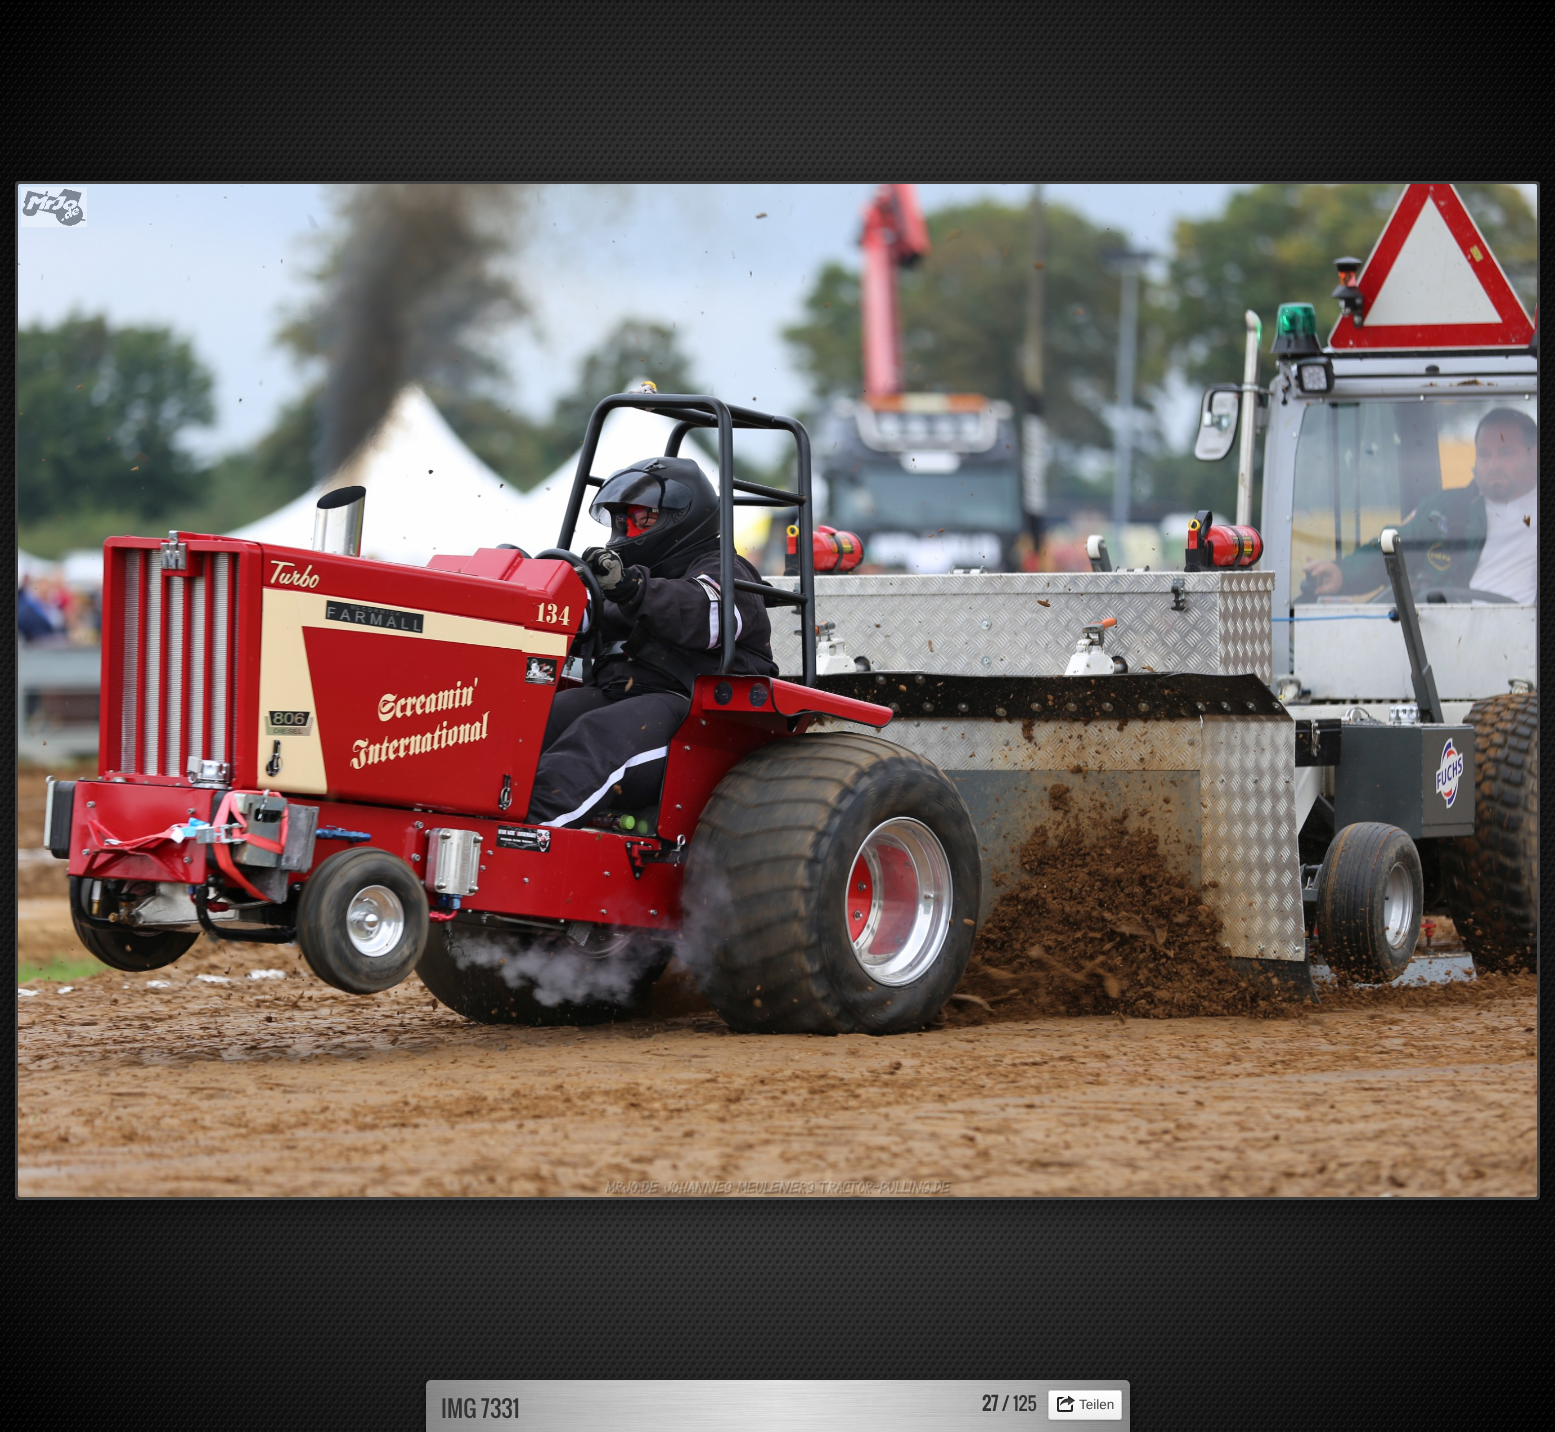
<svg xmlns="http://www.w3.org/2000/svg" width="1555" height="1432">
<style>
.a{font:22.5px Oswald;fill:#333}
.b{font:bold 18px Oswald;fill:#333}
.c{font:18px Oswald;fill:#333}
.d{font:13.5px Liberation Sans;fill:#444}
</style>
<defs>
<linearGradient id="g1" gradientUnits="userSpaceOnUse" x1="1085" y1="1391" x2="1085" y2="1419"><stop offset="0" stop-color="#fff"/><stop offset="1" stop-color="#eee"/></linearGradient>
</defs>
<rect width="100%" height="100%" fill="#fff"/>
<image href="1.png" x="0" y="0" width="1555" height="1432"/>
<rect fill="#00000099" filter="blur(16px)" x="18" y="187" width="1525" height="1019" rx="4"/>
<rect fill="#444" x="15" y="181" width="1525" height="1019" rx="4"/>
<image href="2.png" x="18" y="184" width="1519" height="1013"/>
<rect fill="#00000099" filter="blur(4px)" x="427" y="1383" width="704" height="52" rx="5"/>
<image href="3.png" x="426" y="1380" width="704" height="52"/>
<rect fill="#00000033" filter="blur(1px)" x="1048" y="1391" width="74" height="30" rx="2"/>
<rect fill="url(#g1)" x="1049" y="1391" width="72" height="28" rx="1"/>
<rect fill="none" stroke="#ccc" x="1048.5" y="1390.5" width="73" height="29" rx="1.5"/>
<image href="4.png" x="1057" y="1395" width="18" height="17"/>
<text class="a" x="441" y="1418">IMG 7331</text>
<text class="b" x="982" y="1411">27</text>
<text class="c" x="1002" y="1411">/ 125</text>
<text class="d" x="1079" y="1409">Teilen</text>
</svg>
